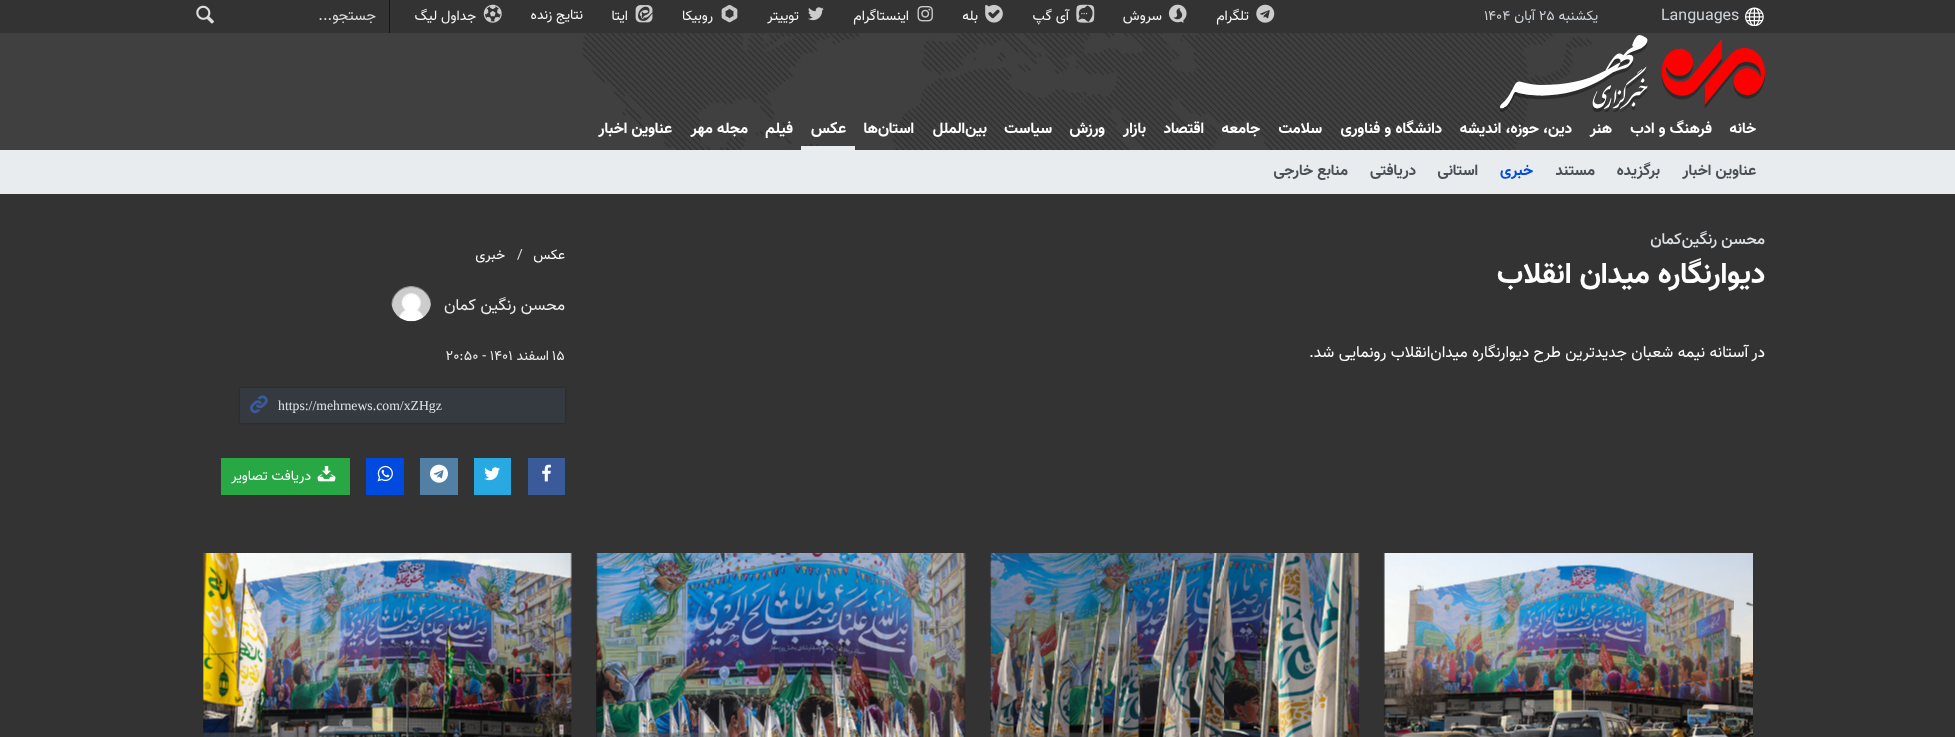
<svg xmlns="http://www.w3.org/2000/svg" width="1955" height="737">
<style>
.a{font:16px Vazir;fill:#ced4da}
.b{font:14px Vazir;direction:rtl;fill:#ced4da}
.c{font:14px Vazir;fill:#ced4da}
.d{font:14px Vazir;direction:rtl;fill:#f8f9fa}
.e{font:15px Vazir;direction:rtl;fill:#ddd}
.f{font:bold 15.5px Vazir;direction:rtl;fill:#fff}
.g{font:bold 15.5px Vazir;direction:rtl;fill:#495057}
.h{font:bold 15.5px Vazir;direction:rtl;fill:#004adf}
.i{font:500 16px Vazir;direction:rtl;fill:#dee2e6}
.j{font:bold 30px Vazir;direction:rtl;fill:#fff}
.k{font:14px Vazir;direction:rtl;fill:#fff}
.l{font:14px Vazir;fill:#dee2e6}
.m{font:16.25px Vazir;direction:rtl;fill:#eee}
.n{font:14px Vazir;fill:#eee}
.o{font:14px Vazir;direction:rtl;fill:#eee}
.p{font:13.75px Liberation Serif;fill:#dee2e6}
.q{font:16px Vazir;direction:rtl;fill:#fff}
</style>
<rect width="100%" height="100%" fill="#333"/>
<path fill="#404040" d="M0 33h1955v117H0z"/>
<image href="1.png" x="582" y="33" width="1011" height="117"/>
<image href="2.png" x="1745" y="7" width="19" height="19"/>
<image href="3.png" x="1256" y="4" width="19" height="19"/>
<image href="4.png" x="1168" y="4" width="19" height="19"/>
<image href="5.png" x="1076" y="4" width="19" height="19"/>
<image href="6.png" x="985" y="4" width="18" height="19"/>
<image href="7.png" x="917" y="6" width="16" height="16"/>
<image href="8.png" x="808" y="7" width="16" height="14"/>
<image href="9.png" x="721" y="4" width="17" height="19"/>
<image href="10.png" x="635" y="5" width="18" height="18"/>
<image href="11.png" x="483" y="4" width="19" height="19"/>
<path fill="#001746" d="M389 0h1v33H389z"/>
<image href="12.png" x="196" y="5" width="18" height="19"/>
<image href="13.png" x="1500" y="35" width="265" height="78"/>
<path fill="#e9ecef" d="M801 146h54v4H801z"/>
<path fill="#e9ecef" d="M0 150h1955v44H0z"/>
<image href="14.png" x="391" y="286" width="40" height="36"/>
<path fill="#222" filter="blur(1px)" d="M240 388h325v35H240z"/>
<path fill="#343a40" d="M240 388h325v35H240z"/>
<image href="15.png" x="250" y="395" width="18" height="19"/>
<path fill="#3b5a9a" d="M528 458h37v37H528z"/>
<image href="16.png" x="542" y="464" width="9" height="18"/>
<path fill="#28a9e2" d="M474 458h37v37H474z"/>
<image href="17.png" x="484" y="467" width="16" height="14"/>
<path fill="#5280a4" d="M420 458h38v37H420z"/>
<image href="18.png" x="430" y="464" width="18" height="19"/>
<path fill="#004adf" d="M366 458h38v37H366z"/>
<image href="19.png" x="377" y="465" width="16" height="17"/>
<path fill="#28a745" d="M221 458h129v37H221z"/>
<image href="20.png" x="317" y="466" width="19" height="16"/>
<path fill="#232323" d="M1384 553h1v184H1384z"/>
<image href="21.png" x="1383" y="553" width="370" height="184"/>
<path fill="#232323" d="M990 553h369v184H990z"/>
<image href="22.png" x="990" y="553" width="370" height="184"/>
<path fill="#232323" d="M596 553h369v184H596z"/>
<image href="23.png" x="596" y="553" width="370" height="184"/>
<path fill="#232323" d="M203 553h368v184H203z"/>
<image href="24.png" x="203" y="553" width="369" height="184"/>
<text class="a" x="1661" y="20">Languages</text>
<text class="b" x="1598" y="20">یکشنبه</text>
<text class="c" x="1539" y="20">۲۵</text>
<text class="b" x="1535" y="20">آبان</text>
<text class="c" x="1484" y="20">۱۴۰۴</text>
<text class="d" x="1249" y="20">تلگرام</text>
<text class="d" x="1162" y="20">سروش</text>
<text class="d" x="1069" y="20">آی گپ</text>
<text class="d" x="978" y="20">بله</text>
<text class="d" x="909" y="20">اینستاگرام</text>
<text class="d" x="799" y="20">توییتر</text>
<text class="d" x="713" y="20">روبیکا</text>
<text class="d" x="628" y="20">ایتا</text>
<text class="d" x="583" y="19">نتایج زنده</text>
<text class="d" x="476" y="20">جداول لیگ</text>
<text class="e" x="376" y="20">جستجو...</text>
<text class="f" x="1712" y="133">فرهنگ و ادب</text>
<text class="f" x="1442" y="133">دانشگاه و فناوری</text>
<text class="f" x="793" y="133">فیلم</text>
<text class="f" x="846" y="133">عکس</text>
<text class="g" x="1756" y="175">عناوین اخبار</text>
<text class="g" x="1660" y="175">برگزیده</text>
<text class="g" x="1595" y="175">مستند</text>
<text class="h" x="1533" y="175">خبری</text>
<text class="g" x="1478" y="175">استانی</text>
<text class="g" x="1416" y="175">دریافتی</text>
<text class="g" x="1348" y="175">منابع خارجی</text>
<text class="f" x="1756" y="133">خانه</text>
<text class="f" x="1612" y="133">هنر</text>
<text class="f" x="1572" y="133">دين، حوزه، انديشه</text>
<text class="f" x="1322" y="133">سلامت</text>
<text class="f" x="1260" y="133">جامعه</text>
<text class="f" x="1204" y="133">اقتصاد</text>
<text class="f" x="1146" y="133">بازار</text>
<text class="f" x="1105" y="133">ورزش</text>
<text class="f" x="1052" y="133">سیاست</text>
<text class="f" x="987" y="133">بین‌الملل</text>
<text class="f" x="914" y="133">استان‌ها</text>
<text class="f" x="748" y="133">مجله مهر</text>
<text class="f" x="672" y="133">عناوین اخبار</text>
<text class="i" x="1765" y="244">محسن رنگین‌کمان</text>
<text class="j" x="1765" y="283">دیوارنگاره میدان انقلاب</text>
<text class="k" x="565" y="259">عکس</text>
<text class="l" x="517" y="259">/</text>
<text class="k" x="505" y="259">خبری</text>
<text class="m" x="565" y="310">محسن رنگین کمان</text>
<text class="n" x="552" y="360">۱۵</text>
<text class="o" x="549" y="360">اسفند</text>
<text class="n" x="446" y="360">۲۰:۵۰ - ۱۴۰۱</text>
<text class="p" x="278" y="410">https://mehrnews.com/xZHgz</text>
<text class="k" x="311" y="480">دریافت تصاویر</text>
<text class="q" x="1765" y="357">در آستانه نیمه شعبان جدیدترین طرح دیوارنگاره میدان‌انقلاب رونمایی شد.</text>
</svg>
